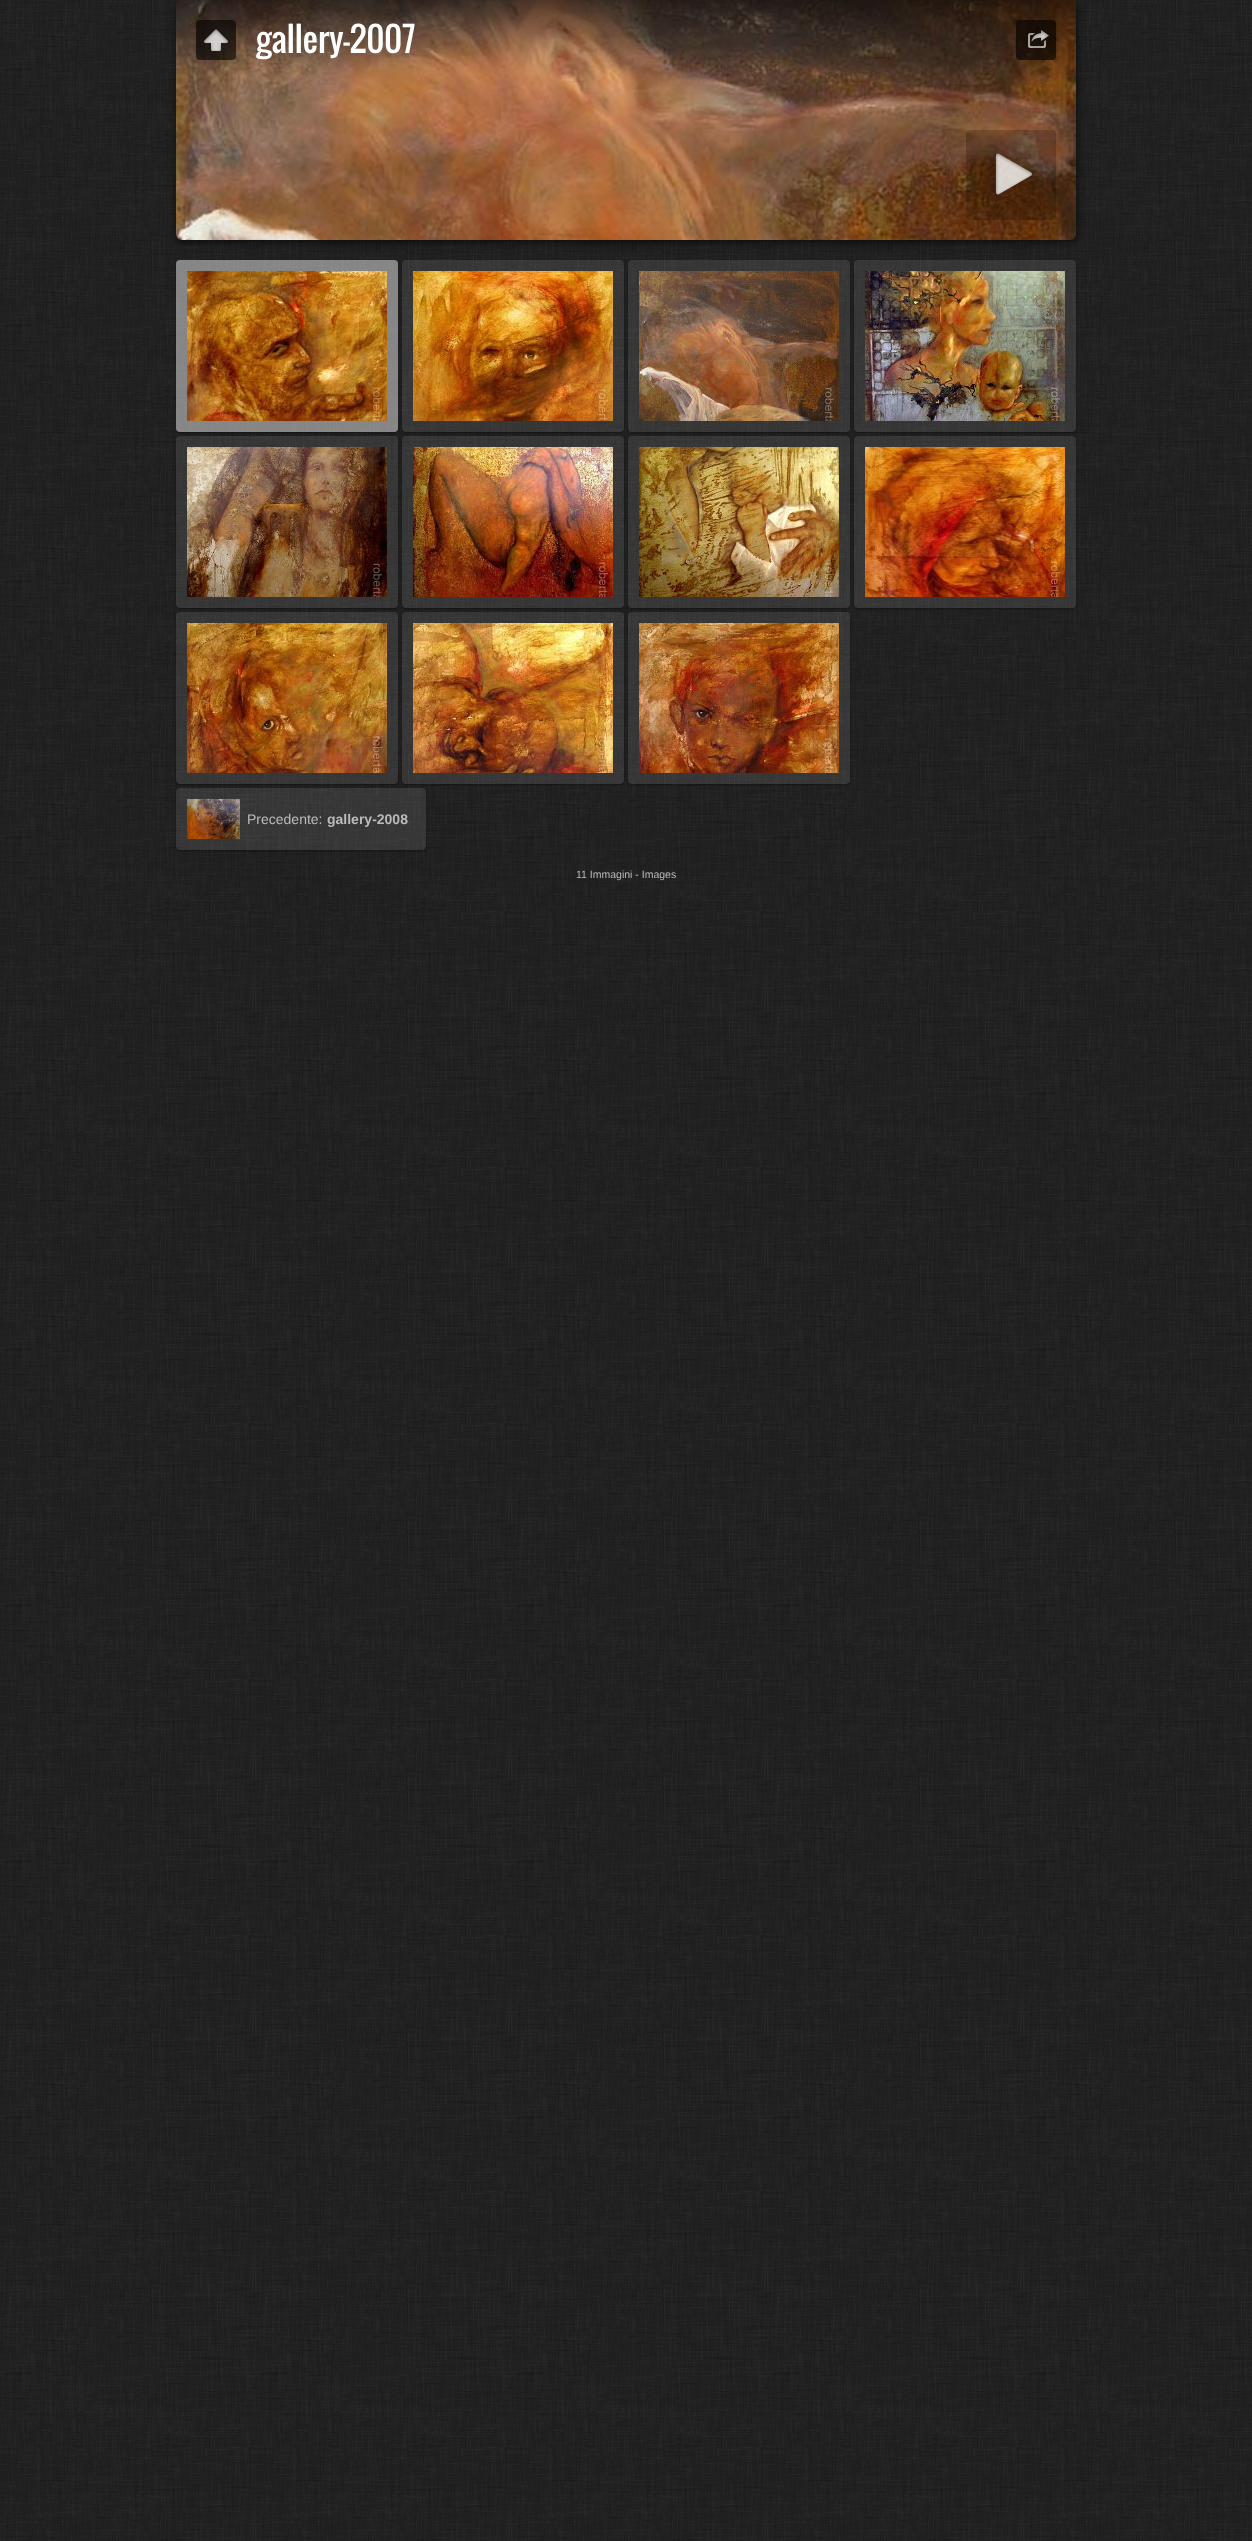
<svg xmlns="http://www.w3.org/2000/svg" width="1252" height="2541">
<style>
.a{font:33.5px Oswald;fill:#fff}
.b{font:14px Liberation Sans;fill:#bbb}
.c{font:bold 14px Liberation Sans;fill:#bbb}
.d{font:10.5px Liberation Sans;fill:#bbb}
</style>
<defs>
<clipPath id="clip1"><path d="M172 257h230v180h-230zm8 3h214c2 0 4 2 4 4v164c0 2-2 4-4 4h-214c-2 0-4-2-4-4v-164c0-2 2-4 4-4z" clip-rule="evenodd"/></clipPath>
<clipPath id="clip2"><path d="M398 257h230v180h-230zm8 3h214c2 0 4 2 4 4v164c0 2-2 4-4 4h-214c-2 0-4-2-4-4v-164c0-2 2-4 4-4z" clip-rule="evenodd"/></clipPath>
<clipPath id="clip3"><path d="M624 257h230v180h-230zm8 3h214c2 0 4 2 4 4v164c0 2-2 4-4 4h-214c-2 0-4-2-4-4v-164c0-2 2-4 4-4z" clip-rule="evenodd"/></clipPath>
<clipPath id="clip4"><path d="M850 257h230v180h-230zm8 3h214c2 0 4 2 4 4v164c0 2-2 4-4 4h-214c-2 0-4-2-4-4v-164c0-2 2-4 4-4z" clip-rule="evenodd"/></clipPath>
<clipPath id="clip5"><path d="M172 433h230v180h-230zm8 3h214c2 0 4 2 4 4v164c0 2-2 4-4 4h-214c-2 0-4-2-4-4v-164c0-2 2-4 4-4z" clip-rule="evenodd"/></clipPath>
<clipPath id="clip6"><path d="M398 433h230v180h-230zm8 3h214c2 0 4 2 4 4v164c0 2-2 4-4 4h-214c-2 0-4-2-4-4v-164c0-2 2-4 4-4z" clip-rule="evenodd"/></clipPath>
<clipPath id="clip7"><path d="M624 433h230v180h-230zm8 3h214c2 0 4 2 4 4v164c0 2-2 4-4 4h-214c-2 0-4-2-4-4v-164c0-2 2-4 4-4z" clip-rule="evenodd"/></clipPath>
<clipPath id="clip8"><path d="M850 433h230v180h-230zm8 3h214c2 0 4 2 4 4v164c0 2-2 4-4 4h-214c-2 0-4-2-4-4v-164c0-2 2-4 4-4z" clip-rule="evenodd"/></clipPath>
<clipPath id="clip9"><path d="M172 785h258v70h-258zm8 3h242c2 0 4 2 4 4v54c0 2-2 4-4 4h-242c-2 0-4-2-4-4v-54c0-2 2-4 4-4z" clip-rule="evenodd"/></clipPath>
<clipPath id="clip10"><path d="M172 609h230v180h-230zm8 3h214c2 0 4 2 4 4v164c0 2-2 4-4 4h-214c-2 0-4-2-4-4v-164c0-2 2-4 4-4z" clip-rule="evenodd"/></clipPath>
<clipPath id="clip11"><path d="M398 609h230v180h-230zm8 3h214c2 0 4 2 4 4v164c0 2-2 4-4 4h-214c-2 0-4-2-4-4v-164c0-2 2-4 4-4z" clip-rule="evenodd"/></clipPath>
<clipPath id="clip12"><path d="M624 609h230v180h-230zm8 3h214c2 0 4 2 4 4v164c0 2-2 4-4 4h-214c-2 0-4-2-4-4v-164c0-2 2-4 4-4z" clip-rule="evenodd"/></clipPath>
</defs>
<rect width="100%" height="100%" fill="#222"/>
<image href="1.png" x="0" y="0" width="1252" height="2541"/>
<rect fill="#00000099" filter="blur(4px)" x="177" y="3" width="900" height="240" rx="6"/>
<image href="2.png" x="176" y="0" width="900" height="240"/>
<rect fill="#00000099" x="196" y="20" width="40" height="40" rx="4"/>
<image href="3.png" x="204" y="29" width="24" height="22"/>
<rect fill="#00000099" x="1016" y="20" width="40" height="40" rx="4"/>
<image href="4.png" x="1028" y="30" width="21" height="18"/>
<rect fill="#00000033" x="966" y="130" width="90" height="90" rx="4"/>
<image href="5.png" x="996" y="153" width="36" height="42"/>
<g clip-path="url(#clip1)">
<rect fill="#00000066" filter="blur(1px)" x="176" y="261" width="222" height="172" rx="4"/>
</g>
<rect fill="#ffffff1a" x="176" y="260" width="222" height="172" rx="4"/>
<rect fill="#ffffff66" x="176" y="260" width="222" height="172" rx="4"/>
<image href="6.png" x="187" y="271" width="200" height="150"/>
<g clip-path="url(#clip2)">
<rect fill="#00000066" filter="blur(1px)" x="402" y="261" width="222" height="172" rx="4"/>
</g>
<rect fill="#ffffff1a" x="402" y="260" width="222" height="172" rx="4"/>
<image href="7.png" x="413" y="271" width="200" height="150"/>
<g clip-path="url(#clip3)">
<rect fill="#00000066" filter="blur(1px)" x="628" y="261" width="222" height="172" rx="4"/>
</g>
<rect fill="#ffffff1a" x="628" y="260" width="222" height="172" rx="4"/>
<image href="8.png" x="639" y="271" width="200" height="150"/>
<g clip-path="url(#clip4)">
<rect fill="#00000066" filter="blur(1px)" x="854" y="261" width="222" height="172" rx="4"/>
</g>
<rect fill="#ffffff1a" x="854" y="260" width="222" height="172" rx="4"/>
<image href="9.png" x="865" y="271" width="200" height="150"/>
<g clip-path="url(#clip5)">
<rect fill="#00000066" filter="blur(1px)" x="176" y="437" width="222" height="172" rx="4"/>
</g>
<rect fill="#ffffff1a" x="176" y="436" width="222" height="172" rx="4"/>
<image href="10.png" x="187" y="447" width="200" height="150"/>
<g clip-path="url(#clip6)">
<rect fill="#00000066" filter="blur(1px)" x="402" y="437" width="222" height="172" rx="4"/>
</g>
<rect fill="#ffffff1a" x="402" y="436" width="222" height="172" rx="4"/>
<image href="11.png" x="413" y="447" width="200" height="150"/>
<g clip-path="url(#clip7)">
<rect fill="#00000066" filter="blur(1px)" x="628" y="437" width="222" height="172" rx="4"/>
</g>
<rect fill="#ffffff1a" x="628" y="436" width="222" height="172" rx="4"/>
<image href="12.png" x="639" y="447" width="200" height="150"/>
<g clip-path="url(#clip8)">
<rect fill="#00000066" filter="blur(1px)" x="854" y="437" width="222" height="172" rx="4"/>
</g>
<rect fill="#ffffff1a" x="854" y="436" width="222" height="172" rx="4"/>
<image href="13.png" x="865" y="447" width="200" height="150"/>
<g clip-path="url(#clip9)">
<rect fill="#00000066" filter="blur(1px)" x="176" y="789" width="250" height="62" rx="4"/>
</g>
<rect fill="#ffffff1a" x="176" y="788" width="250" height="62" rx="4"/>
<g clip-path="url(#clip10)">
<rect fill="#00000066" filter="blur(1px)" x="176" y="613" width="222" height="172" rx="4"/>
</g>
<rect fill="#ffffff1a" x="176" y="612" width="222" height="172" rx="4"/>
<image href="14.png" x="187" y="623" width="200" height="150"/>
<g clip-path="url(#clip11)">
<rect fill="#00000066" filter="blur(1px)" x="402" y="613" width="222" height="172" rx="4"/>
</g>
<rect fill="#ffffff1a" x="402" y="612" width="222" height="172" rx="4"/>
<image href="15.png" x="413" y="623" width="200" height="150"/>
<g clip-path="url(#clip12)">
<rect fill="#00000066" filter="blur(1px)" x="628" y="613" width="222" height="172" rx="4"/>
</g>
<rect fill="#ffffff1a" x="628" y="612" width="222" height="172" rx="4"/>
<image href="16.png" x="639" y="623" width="200" height="150"/>
<image href="17.png" x="187" y="799" width="53" height="40"/>
<text class="a" x="256" y="53">gallery-2007</text>
<text class="b" x="247" y="824">Precedente:</text>
<text class="c" x="327" y="824">gallery-2008</text>
<text class="d" x="576" y="878">11 Immagini - Images</text>
</svg>
